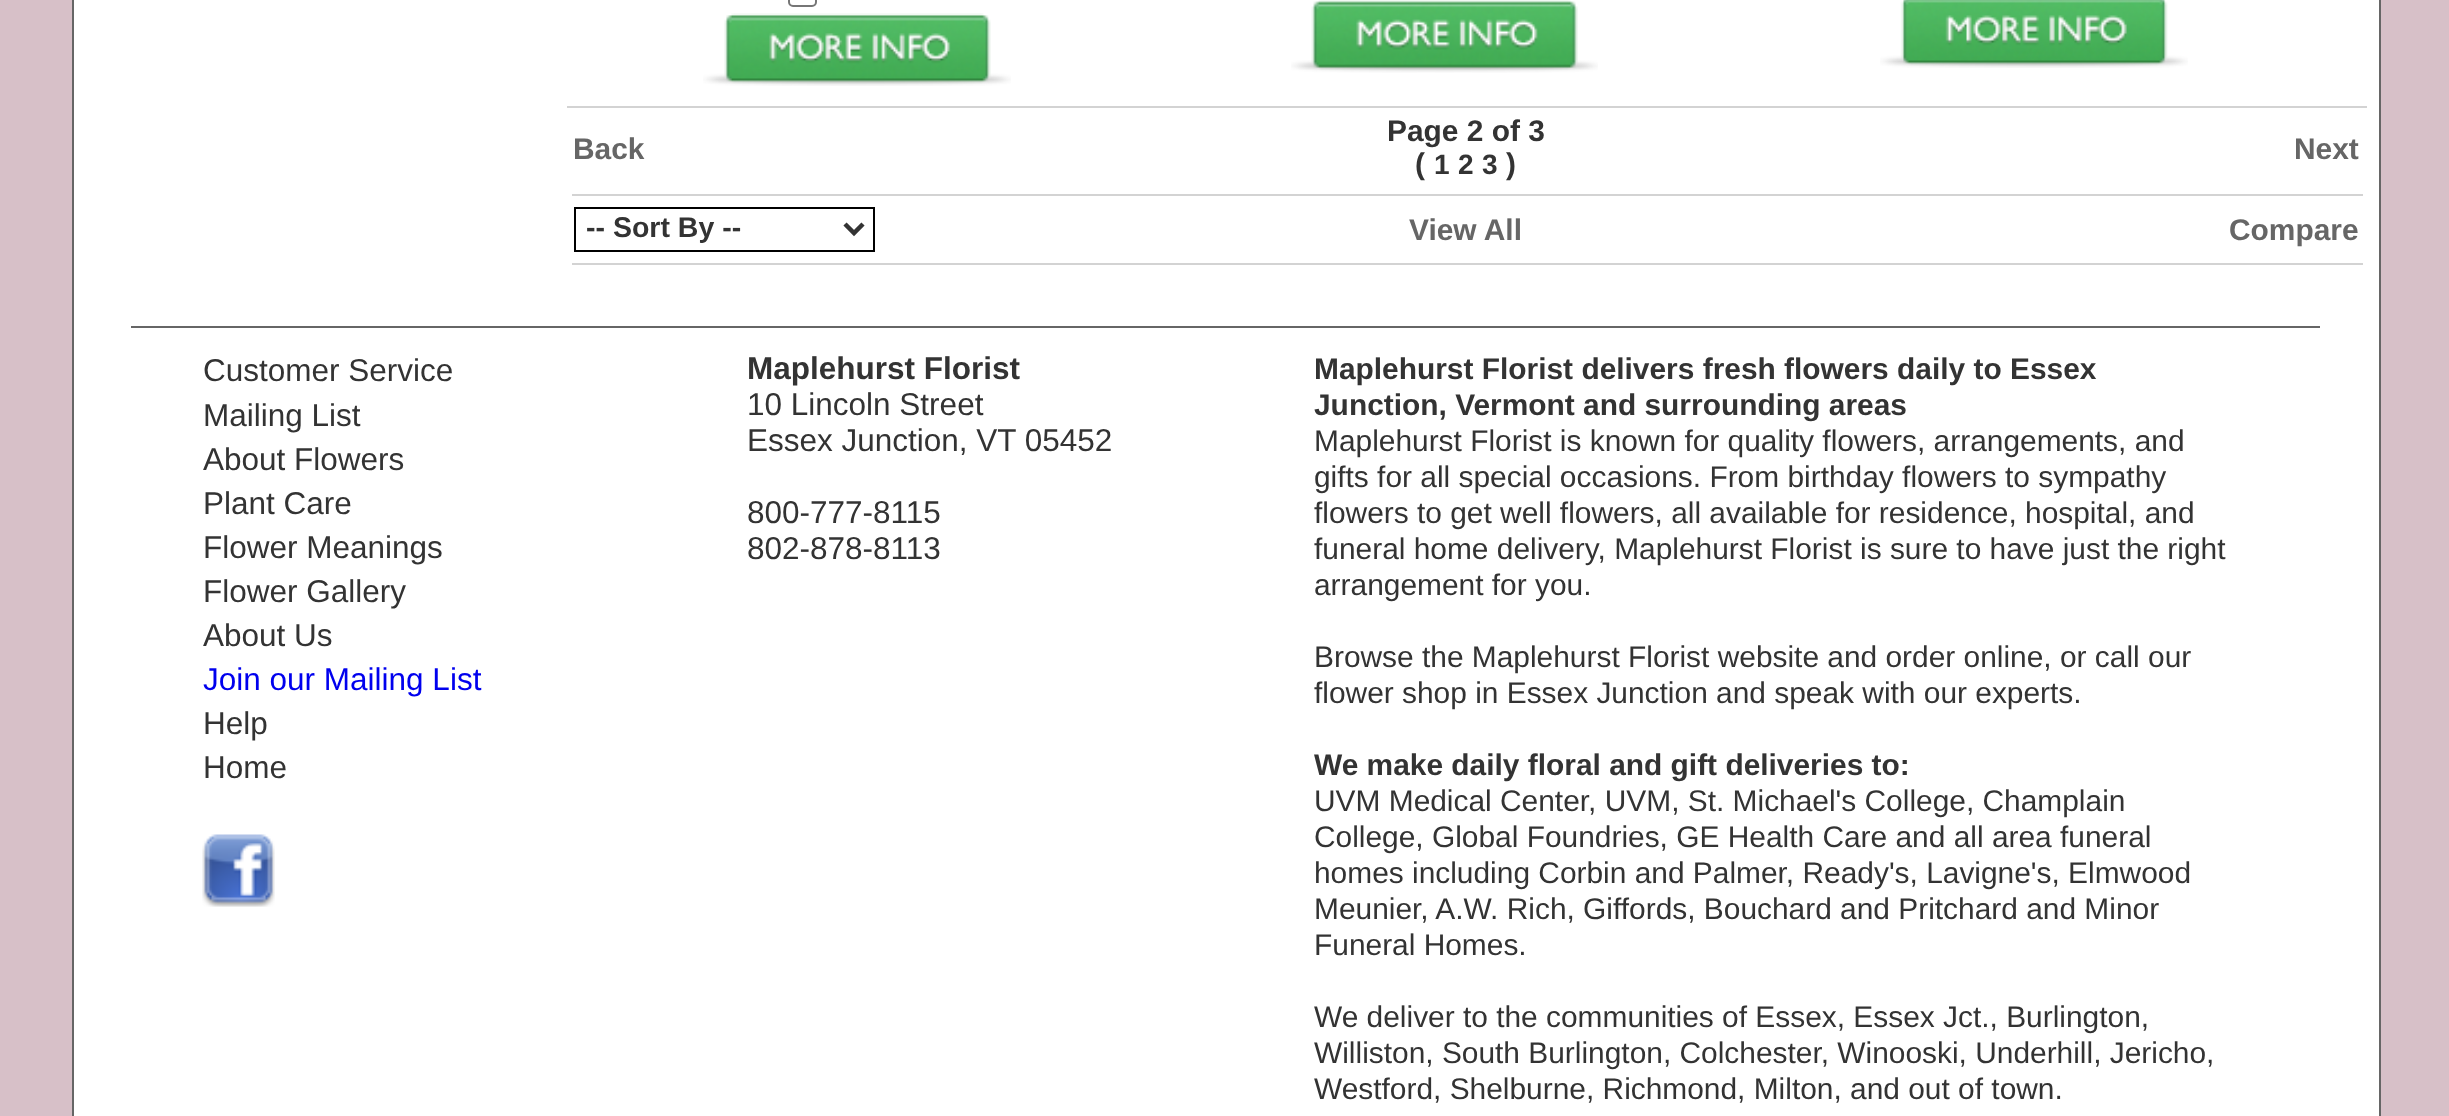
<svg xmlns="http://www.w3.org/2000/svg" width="2449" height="1116">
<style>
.a{font:bold 29.9px Liberation Sans;fill:#666}
.b{font:bold 29.9px Liberation Sans;fill:#333}
.c{font:bold 28px Liberation Sans;fill:#333}
.d{font:bold 28.5px Liberation Sans;fill:#333}
.e{font:31.5px Liberation Sans;fill:#333}
.f{font:31.5px Liberation Sans;fill:#00e}
.g{font:bold 31.5px Liberation Sans;fill:#333}
.h{font:29.9px Liberation Sans;fill:#333}
</style>
<rect width="100%" height="100%" fill="#d7c0c8"/>
<path fill="#fff" stroke="#666" stroke-width="2" d="M73 -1h2307v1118H73z"/>
<rect fill="none" stroke="#767676" stroke-width="2" x="789" y="-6" width="27" height="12" rx="4"/>
<image href="1.png" x="703" y="13" width="308" height="73"/>
<image href="2.png" x="1291" y="0" width="307" height="73"/>
<image href="3.png" x="1880" y="0" width="308" height="68"/>
<path fill="#d3d3d3" d="M567 106h1800v2H567z"/>
<path fill="#d3d3d3" d="M572 194h1791v2H572z"/>
<path fill="none" stroke="#000" stroke-width="2" d="M575 208h299v43H575z"/>
<path fill="none" stroke="#333" stroke-width="4.5" d="M845 224l9 9l9-9"/>
<path fill="#d3d3d3" d="M572 263h1791v2H572z"/>
<path fill="#666" d="M131 326h2189v2H131z"/>
<image href="4.png" x="202" y="834" width="73" height="73"/>
<text class="a" x="573" y="159">Back</text>
<text class="b" x="1387" y="141">Page 2 of 3</text>
<text class="b" x="1415" y="174">(</text>
<text class="c" x="1434" y="174">1</text>
<text class="c" x="1458" y="174">2</text>
<text class="c" x="1482" y="174">3</text>
<text class="b" x="1506" y="174">)</text>
<text class="a" x="2294" y="159">Next</text>
<text class="d" x="586" y="237">-- Sort By --</text>
<text class="a" x="1409" y="240">View All</text>
<text class="a" x="2229" y="240">Compare</text>
<text class="e" x="203" y="381">Customer Service</text>
<text class="e" x="203" y="426">Mailing List</text>
<text class="e" x="203" y="470">About Flowers</text>
<text class="e" x="203" y="514">Plant Care</text>
<text class="e" x="203" y="558">Flower Meanings</text>
<text class="e" x="203" y="602">Flower Gallery</text>
<text class="e" x="203" y="646">About Us</text>
<text class="f" x="203" y="690">Join our Mailing List</text>
<text class="e" x="203" y="734">Help</text>
<text class="e" x="203" y="778">Home</text>
<text class="g" x="747" y="379">Maplehurst Florist</text>
<text class="e" x="747" y="415">10 Lincoln Street</text>
<text class="e" x="747" y="451">Essex Junction, VT 05452</text>
<text class="e" x="747" y="523">800-777-8115</text>
<text class="e" x="747" y="559">802-878-8113</text>
<text class="b" x="1314" y="379">Maplehurst Florist delivers fresh flowers daily to Essex</text>
<text class="b" x="1314" y="415">Junction, Vermont and surrounding areas</text>
<text class="h" x="1314" y="451">Maplehurst Florist is known for quality flowers, arrangements, and</text>
<text class="h" x="1314" y="487">gifts for all special occasions. From birthday flowers to sympathy</text>
<text class="h" x="1314" y="523">flowers to get well flowers, all available for residence, hospital, and</text>
<text class="h" x="1314" y="559">funeral home delivery, Maplehurst Florist is sure to have just the right</text>
<text class="h" x="1314" y="595">arrangement for you.</text>
<text class="h" x="1314" y="667">Browse the Maplehurst Florist website and order online, or call our</text>
<text class="h" x="1314" y="703">flower shop in Essex Junction and speak with our experts.</text>
<text class="b" x="1314" y="775">We make daily floral and gift deliveries to:</text>
<text class="h" x="1314" y="811">UVM Medical Center, UVM, St. Michael's College, Champlain</text>
<text class="h" x="1314" y="847">College, Global Foundries, GE Health Care and all area funeral</text>
<text class="h" x="1314" y="883">homes including Corbin and Palmer, Ready's, Lavigne's, Elmwood</text>
<text class="h" x="1314" y="919">Meunier, A.W. Rich, Giffords, Bouchard and Pritchard and Minor</text>
<text class="h" x="1314" y="955">Funeral Homes.</text>
<text class="h" x="1314" y="1027">We deliver to the communities of Essex, Essex Jct., Burlington,</text>
<text class="h" x="1314" y="1063">Williston, South Burlington, Colchester, Winooski, Underhill, Jericho,</text>
<text class="h" x="1314" y="1099">Westford, Shelburne, Richmond, Milton, and out of town.</text>
</svg>
